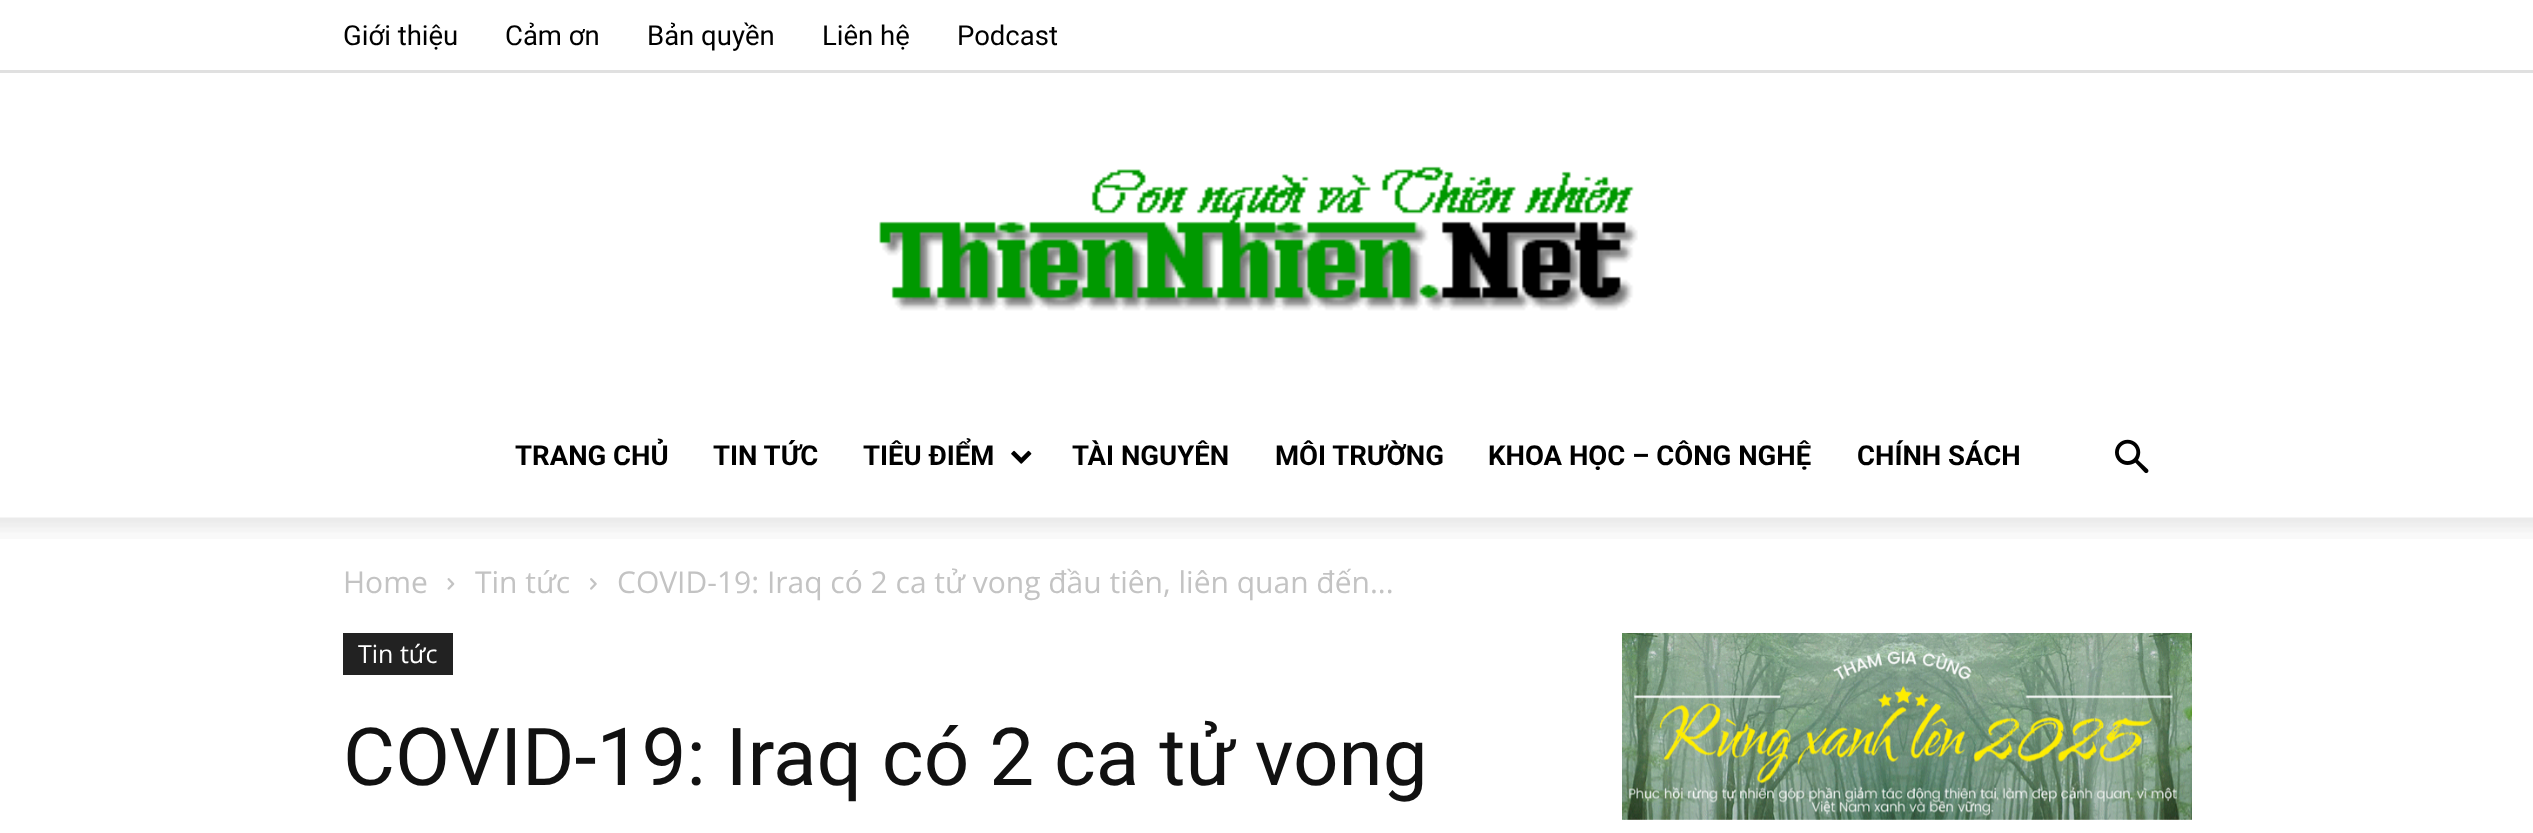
<svg xmlns="http://www.w3.org/2000/svg" width="2533" height="833">
<style>
.a{font:27.5px Roboto;fill:#000}
.b{font:bold 27.5px Roboto;fill:#000}
.c{font:30px Open Sans;fill:#c3c3c3}
.d{font:25px Open Sans;fill:#fff}
.e{font:80px Roboto;fill:#111}
</style>
<rect width="100%" height="100%" fill="#fff"/>
<path fill="#e0e0e0" d="M0 70h2533v3H0z"/>
<image href="1.png" x="879" y="166" width="759" height="145"/>
<image href="2.png" x="1011" y="450" width="21" height="14"/>
<image href="3.png" x="2115" y="439" width="34" height="35"/>
<image href="4.png" x="0" y="517" width="2533" height="22"/>
<image href="5.png" x="447" y="578" width="8" height="12"/>
<image href="6.png" x="590" y="578" width="7" height="12"/>
<path fill="#222" d="M343 633h110v42H343z"/>
<image href="7.png" x="1622" y="633" width="570" height="187"/>
<text class="a" x="343" y="45">Giới thiệu</text>
<text class="a" x="505" y="45">Cảm ơn</text>
<text class="a" x="647" y="45">Bản quyền</text>
<text class="a" x="822" y="45">Liên hệ</text>
<text class="a" x="957" y="45">Podcast</text>
<text class="b" x="515" y="465">TRANG CHỦ</text>
<text class="b" x="713" y="465">TIN TỨC</text>
<text class="b" x="863" y="465">TIÊU ĐIỂM</text>
<text class="b" x="1072" y="465">TÀI NGUYÊN</text>
<text class="b" x="1275" y="465">MÔI TRƯỜNG</text>
<text class="b" x="1488" y="465">KHOA HỌC – CÔNG NGHỆ</text>
<text class="b" x="1857" y="465">CHÍNH SÁCH</text>
<text class="c" x="343" y="593">Home</text>
<text class="c" x="475" y="593">Tin tức</text>
<text class="c" x="617" y="593">COVID-19: Iraq có 2 ca tử vong đầu tiên, liên quan đến...</text>
<text class="d" x="358" y="663">Tin tức</text>
<text class="e" x="343" y="785">COVID-19: Iraq có 2 ca tử vong</text>
</svg>
